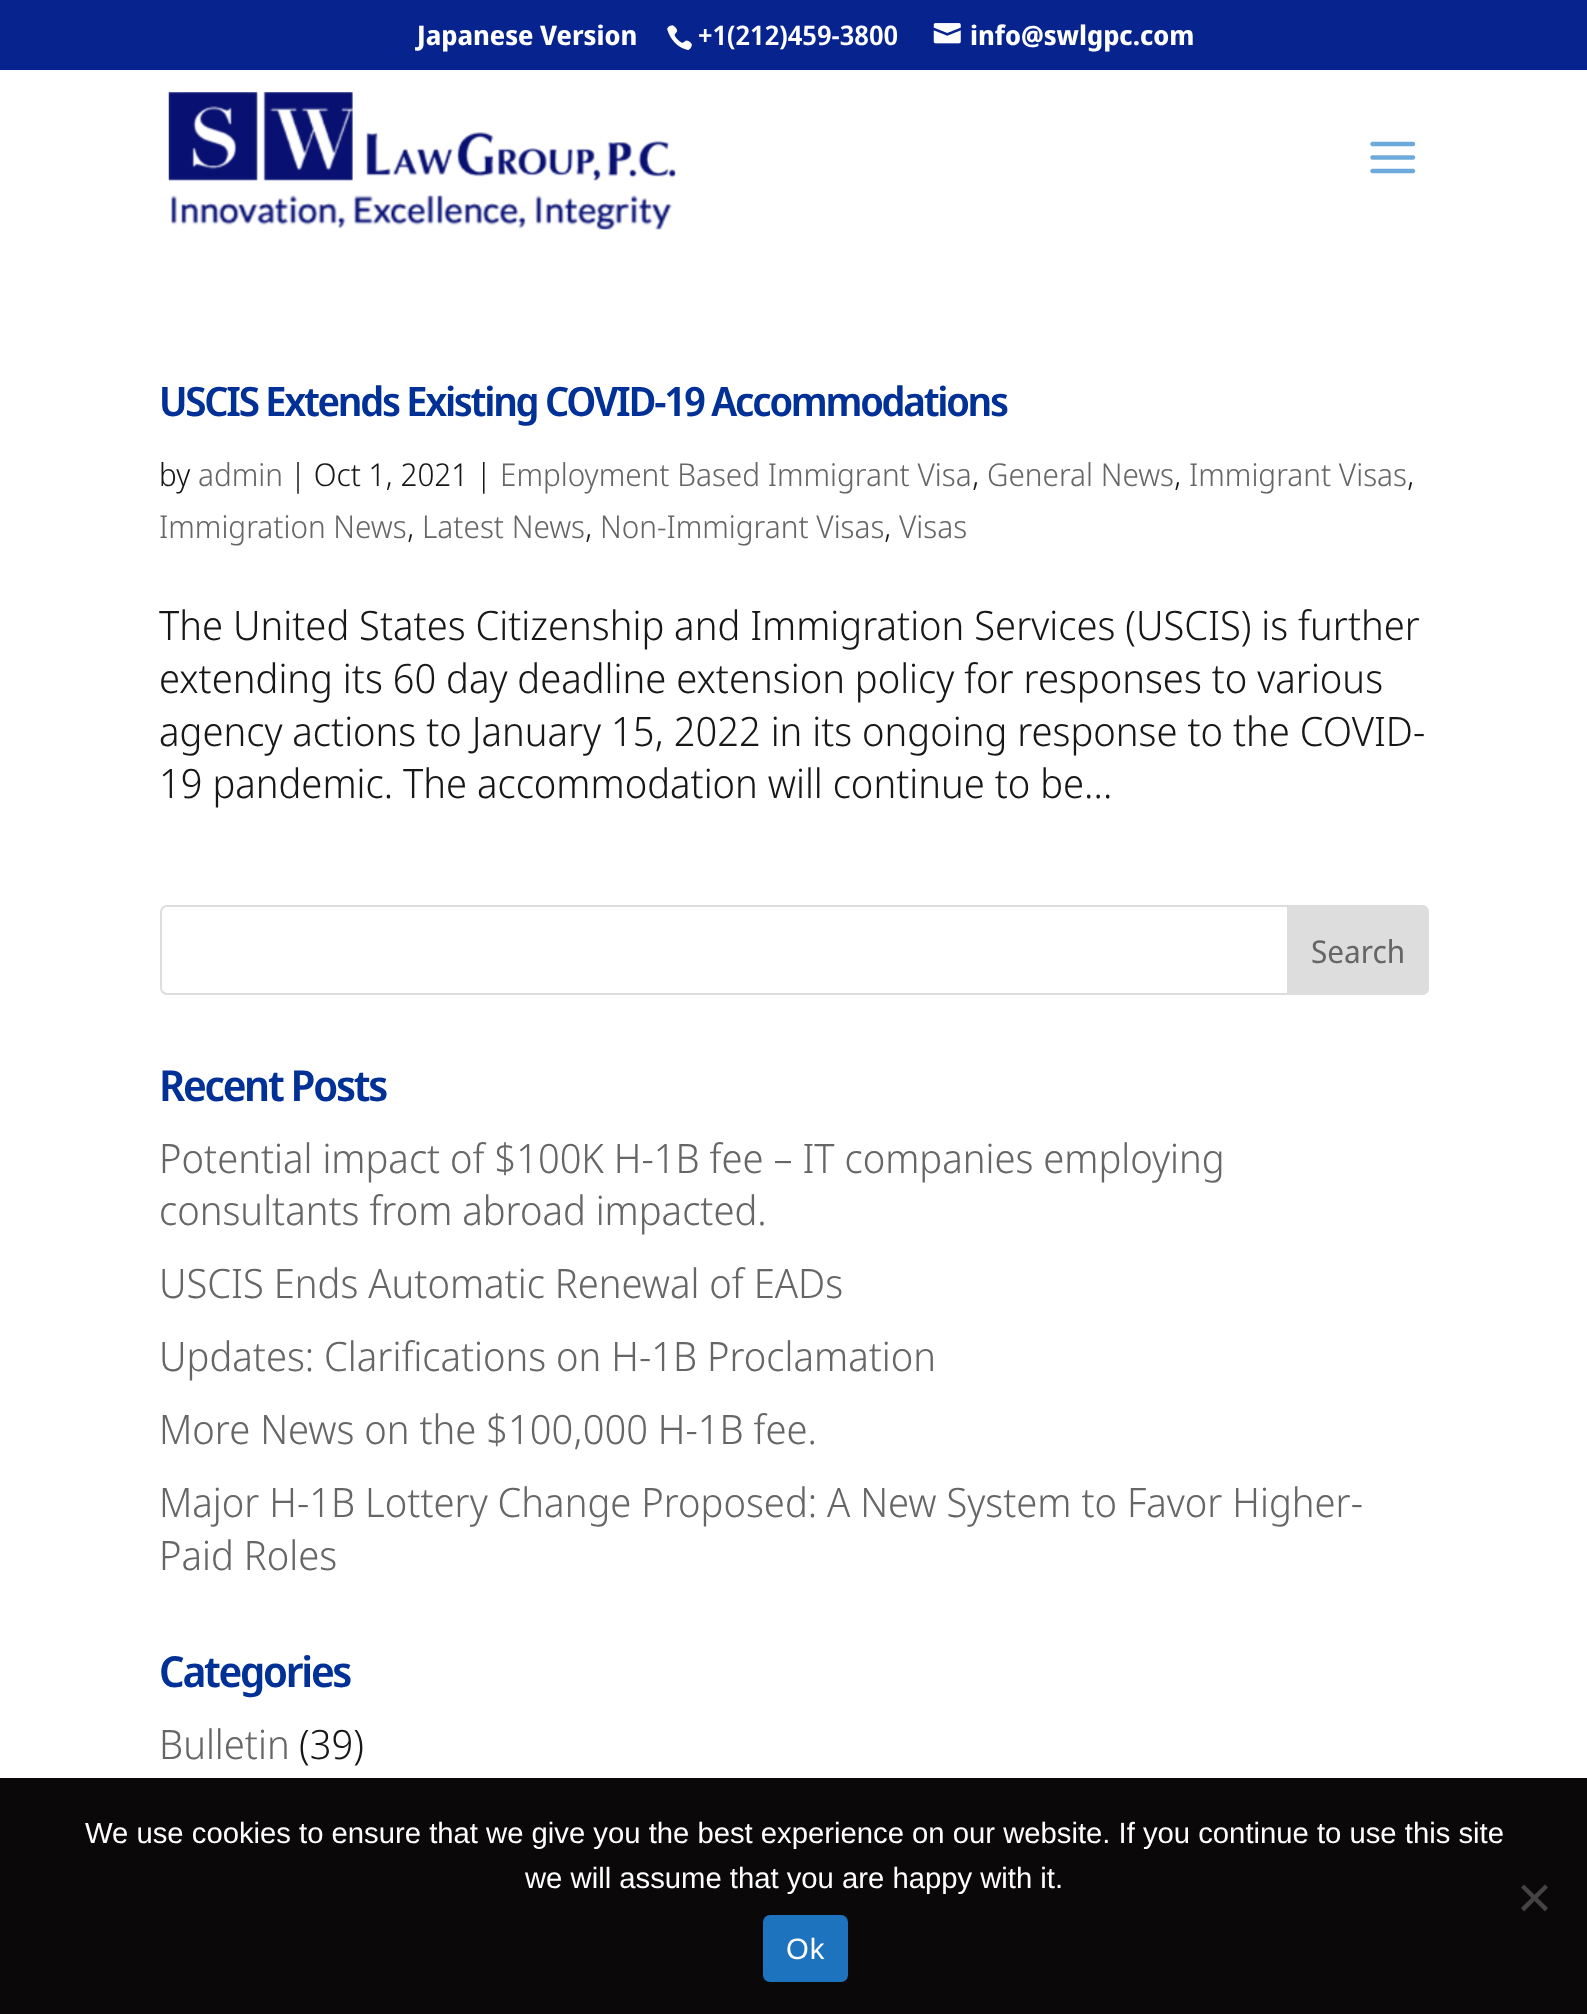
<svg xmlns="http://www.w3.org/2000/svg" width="1587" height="2014">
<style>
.a{font:bold 27px Noto Sans Display;fill:#fff}
.b{font:600 27px Noto Sans Display;fill:#fff}
.c{font:600 40.5px Noto Sans Display;letter-spacing:-2.25px;fill:#013096}
.d{font:300 31.5px Noto Sans Display;fill:#171717}
.e{font:300 31.5px Noto Sans Display;fill:#666}
.f{font:300 40.5px Noto Sans Display;fill:#171717}
.g{font:31.5px Noto Sans Display;fill:#666}
.h{font:600 42.75px Noto Sans Display;letter-spacing:-2.25px;fill:#013096}
.i{font:300 40.5px Noto Sans Display;fill:#666}
.j{font:29.25px Liberation Sans;fill:#fff}
.k{font:29.25px Liberation Sans;letter-spacing:1px;fill:#fff}
</style>
<rect width="100%" height="100%" fill="#07248e"/>
<image href="1.png" x="667" y="25" width="25" height="26"/>
<image href="2.png" x="933" y="23" width="28" height="21"/>
<path fill="#fff" d="M0 70h1587v1708H0z"/>
<image href="3.png" x="168" y="92" width="508" height="138"/>
<image href="4.png" x="1370" y="141" width="46" height="33"/>
<rect fill="none" stroke="#ddd" stroke-width="2" x="161" y="906" width="1267" height="88" rx="6"/>
<path fill="#ddd" stroke="#ddd" stroke-width="2" d="M1288 906h134c3.5 0 6 2.5 6 6v76c0 3.5-2.5 6-6 6h-134z"/>
<path fill="#0a0808" d="M0 1778h1587v236H0z"/>
<path fill="#454444" d="M1545 1884.5l3 3l-24 24l-3-3.5z"/>
<path fill="#454444" d="M1521 1887.5l3-3l24 23.5l-3 3.5z"/>
<rect fill="#1e73be" x="763" y="1915" width="85" height="67" rx="7"/>
<text class="a" x="417" y="45">Japanese Version</text>
<text class="b" x="698" y="45">+1(212)459-3800</text>
<text class="a" x="970" y="45">info@swlgpc.com</text>
<text class="c" x="159" y="416">USCIS Extends Existing COVID-19 Accommodations</text>
<text class="d" x="159" y="486">by</text>
<text class="e" x="198" y="486">admin</text>
<text class="d" x="290" y="486">| Oct 1, 2021 |</text>
<text class="e" x="500" y="486">Employment Based Immigrant Visa</text>
<text class="d" x="972" y="486">,</text>
<text class="e" x="987" y="486">General News</text>
<text class="d" x="1174" y="486">,</text>
<text class="e" x="1189" y="486">Immigrant Visas</text>
<text class="d" x="1407" y="486">,</text>
<text class="e" x="159" y="538">Immigration News</text>
<text class="d" x="407" y="538">,</text>
<text class="e" x="422" y="538">Latest News</text>
<text class="d" x="585" y="538">,</text>
<text class="e" x="600" y="538">Non-Immigrant Visas</text>
<text class="d" x="884" y="538">,</text>
<text class="e" x="899" y="538">Visas</text>
<text class="f" x="159" y="640">The United States Citizenship and Immigration Services (USCIS) is further</text>
<text class="f" x="159" y="693">extending its 60 day deadline extension policy for responses to various</text>
<text class="f" x="159" y="746">agency actions to January 15, 2022 in its ongoing response to the COVID-</text>
<text class="f" x="159" y="798">19 pandemic. The accommodation will continue to be...</text>
<text class="g" x="1311" y="963">Search</text>
<text class="h" x="159" y="1101">Recent Posts</text>
<text class="i" x="159" y="1173">Potential impact of $100K H-1B fee – IT companies employing</text>
<text class="i" x="159" y="1225">consultants from abroad impacted.</text>
<text class="i" x="159" y="1298">USCIS Ends Automatic Renewal of EADs</text>
<text class="i" x="159" y="1371">Updates: Clarifications on H-1B Proclamation</text>
<text class="i" x="159" y="1444">More News on the $100,000 H-1B fee.</text>
<text class="i" x="159" y="1517">Major H-1B Lottery Change Proposed: A New System to Favor Higher-</text>
<text class="i" x="159" y="1570">Paid Roles</text>
<text class="h" x="159" y="1687">Categories</text>
<text class="i" x="159" y="1759">Bulletin</text>
<text class="f" x="299" y="1759">(39)</text>
<text class="j" x="85" y="1843">We use cookies to ensure that we give you the best experience on our website. If you continue to use this site</text>
<text class="j" x="525" y="1888">we will assume that you are happy with it.</text>
<text class="k" x="786" y="1959">Ok</text>
</svg>
